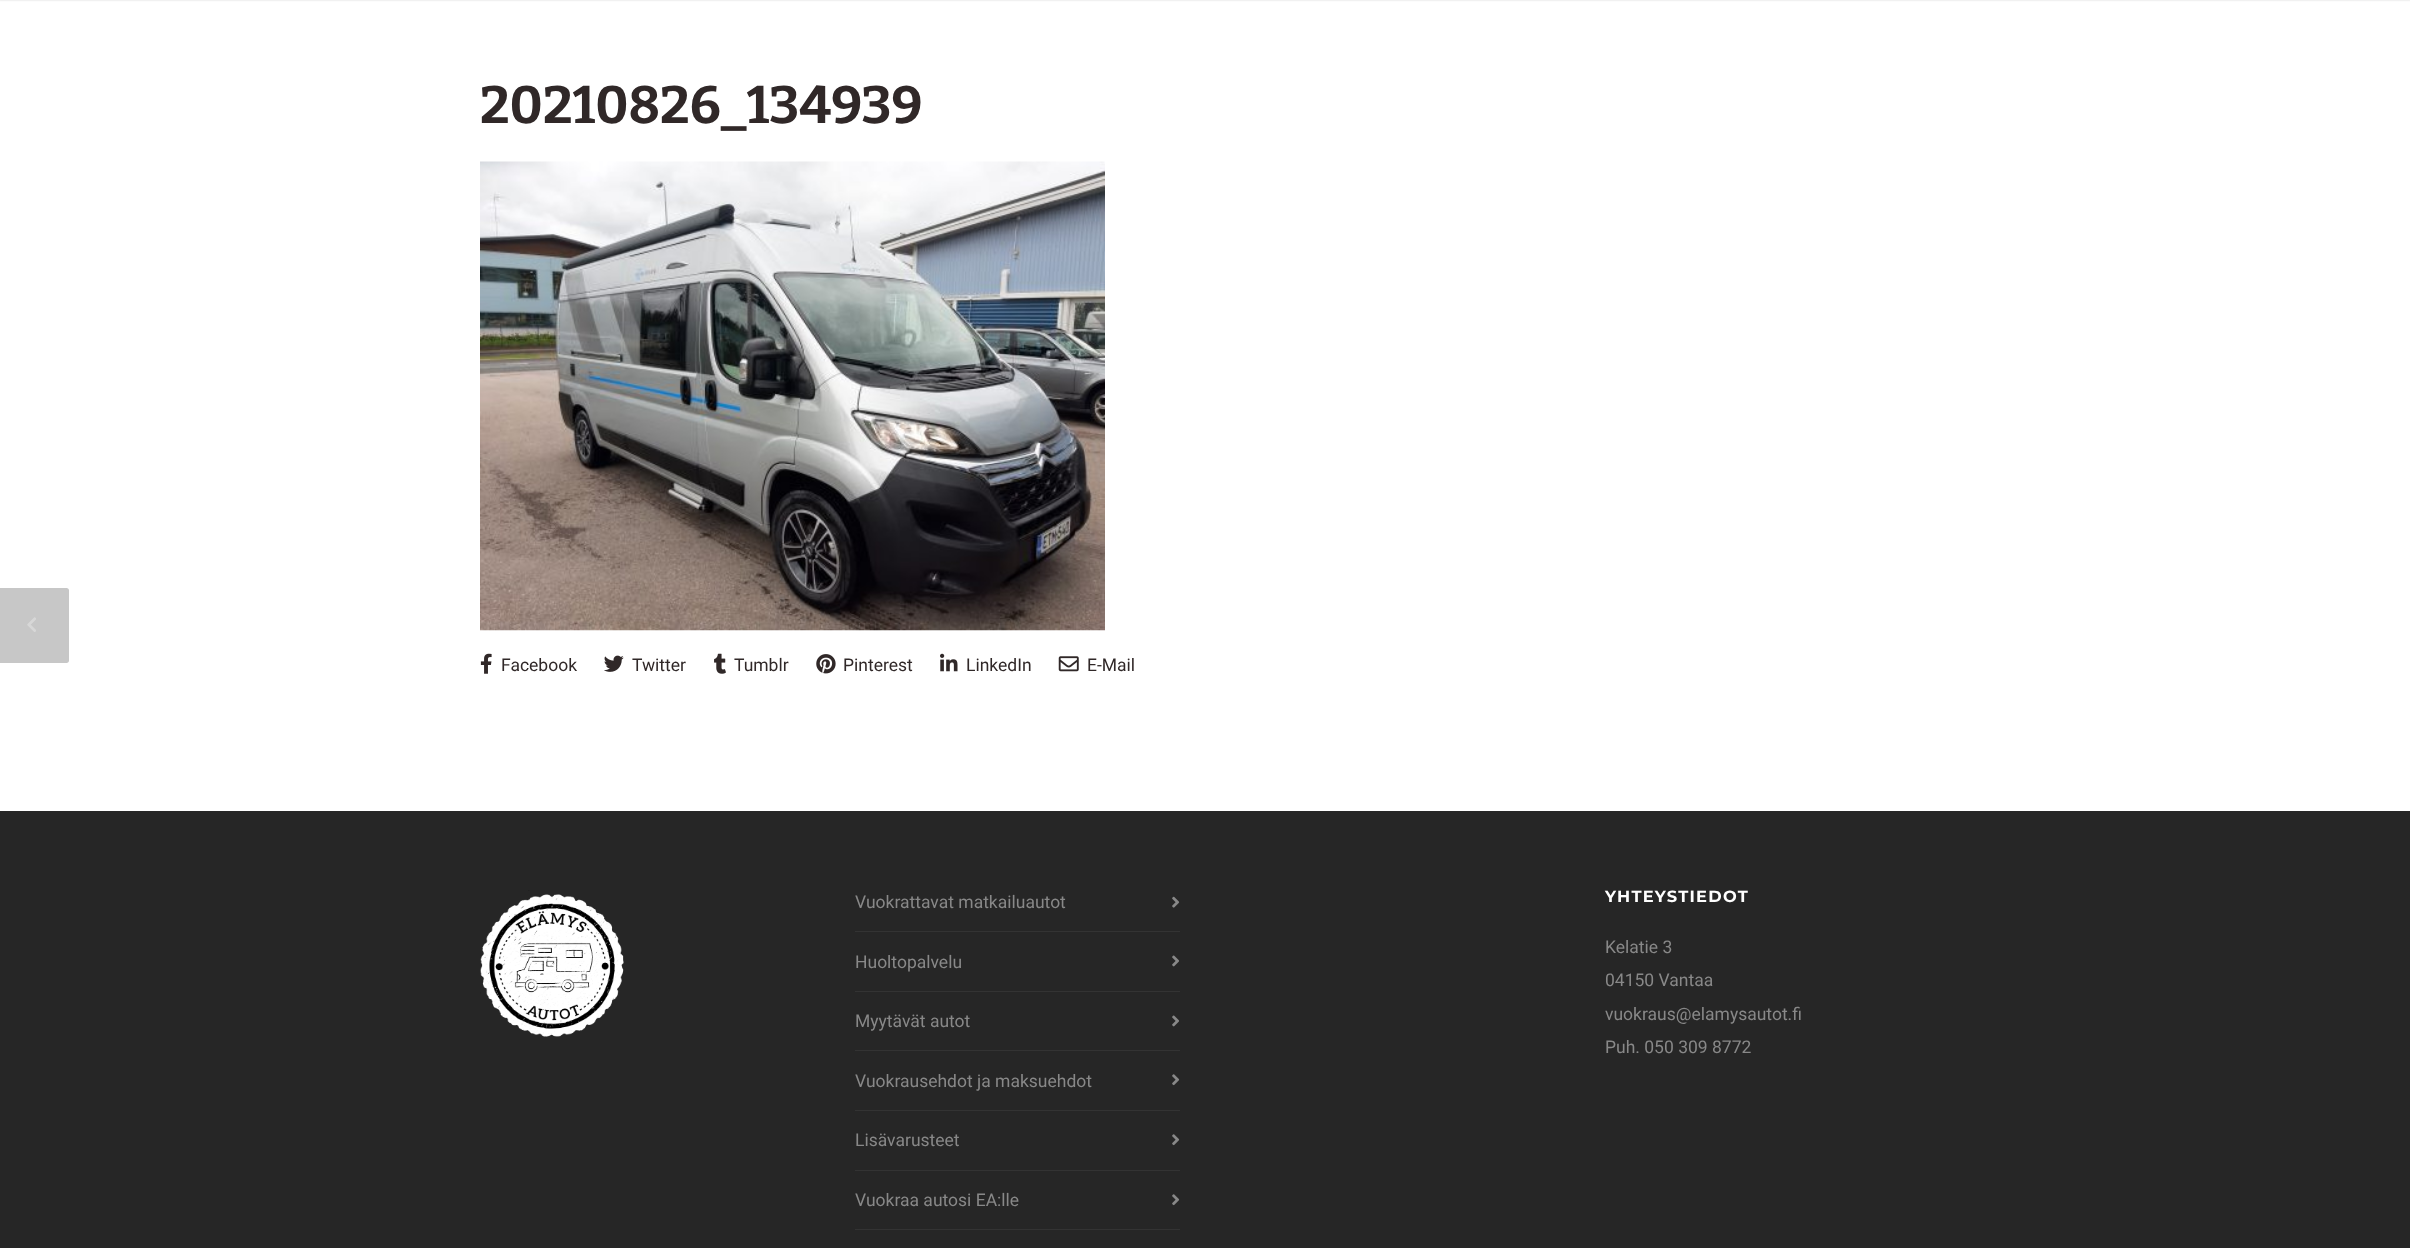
<svg xmlns="http://www.w3.org/2000/svg" width="2410" height="1248">
<style>
.a{font:bold 52.5px Bitter;fill:#302828}
.b{font:17.5px Roboto;fill:#302828}
.c{font:17.5px Roboto;fill:#888}
.d{font:bold 16.25px Montserrat;letter-spacing:1.25px;fill:#fff}
</style>
<rect width="100%" height="100%" fill="#fff"/>
<path fill="#00000029" filter="blur(1px)" d="M-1 -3h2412v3H-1z"/>
<image href="1.png" x="480" y="161" width="625" height="470"/>
<path fill="#c7c7c7" d="M-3 588h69.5c1.5 0 2.5 1 2.5 2.5v70c0 1.5-1 2.5-2.5 2.5h-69.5z"/>
<image href="2.png" x="27" y="617" width="9" height="15"/>
<image href="3.png" x="480" y="653" width="12" height="21"/>
<image href="4.png" x="604" y="655" width="20" height="17"/>
<image href="5.png" x="714" y="653" width="12" height="21"/>
<image href="6.png" x="816" y="654" width="20" height="20"/>
<image href="7.png" x="940" y="653" width="18" height="19"/>
<image href="8.png" x="1058" y="656" width="21" height="16"/>
<path fill="#262626" d="M0 811h2410v437H0z"/>
<image href="9.png" x="480" y="890" width="144" height="147"/>
<path fill="#333" d="M855 931h325v1H855z"/>
<image href="10.png" x="1172" y="896" width="8" height="12"/>
<path fill="#333" d="M855 991h325v1H855z"/>
<image href="11.png" x="1172" y="955" width="7" height="12"/>
<path fill="#333" d="M855 1050h325v1H855z"/>
<image href="11.png" x="1172" y="1015" width="7" height="12"/>
<path fill="#333" d="M855 1110h325v1H855z"/>
<image href="12.png" x="1172" y="1074" width="8" height="12"/>
<path fill="#333" d="M855 1170h325v1H855z"/>
<image href="12.png" x="1172" y="1134" width="8" height="12"/>
<path fill="#333" d="M855 1229h325v1H855z"/>
<image href="12.png" x="1172" y="1194" width="8" height="12"/>
<text class="a" x="480" y="123">20210826_134939</text>
<text class="b" x="501" y="671">Facebook</text>
<text class="b" x="632" y="671">Twitter</text>
<text class="b" x="734" y="671">Tumblr</text>
<text class="b" x="843" y="671">Pinterest</text>
<text class="b" x="966" y="671">LinkedIn</text>
<text class="b" x="1087" y="671">E-Mail</text>
<text class="c" x="855" y="908">Vuokrattavat matkailuautot</text>
<text class="c" x="855" y="968">Huoltopalvelu</text>
<text class="c" x="855" y="1027">Myytävät autot</text>
<text class="c" x="855" y="1087">Vuokrausehdot ja maksuehdot</text>
<text class="c" x="855" y="1146">Lisävarusteet</text>
<text class="c" x="855" y="1206">Vuokraa autosi EA:lle</text>
<text class="d" x="1605" y="902">YHTEYSTIEDOT</text>
<text class="c" x="1605" y="953">Kelatie 3</text>
<text class="c" x="1605" y="986">04150 Vantaa</text>
<text class="c" x="1605" y="1020">vuokraus@elamysautot.fi</text>
<text class="c" x="1605" y="1053">Puh. 050 309 8772</text>
</svg>
